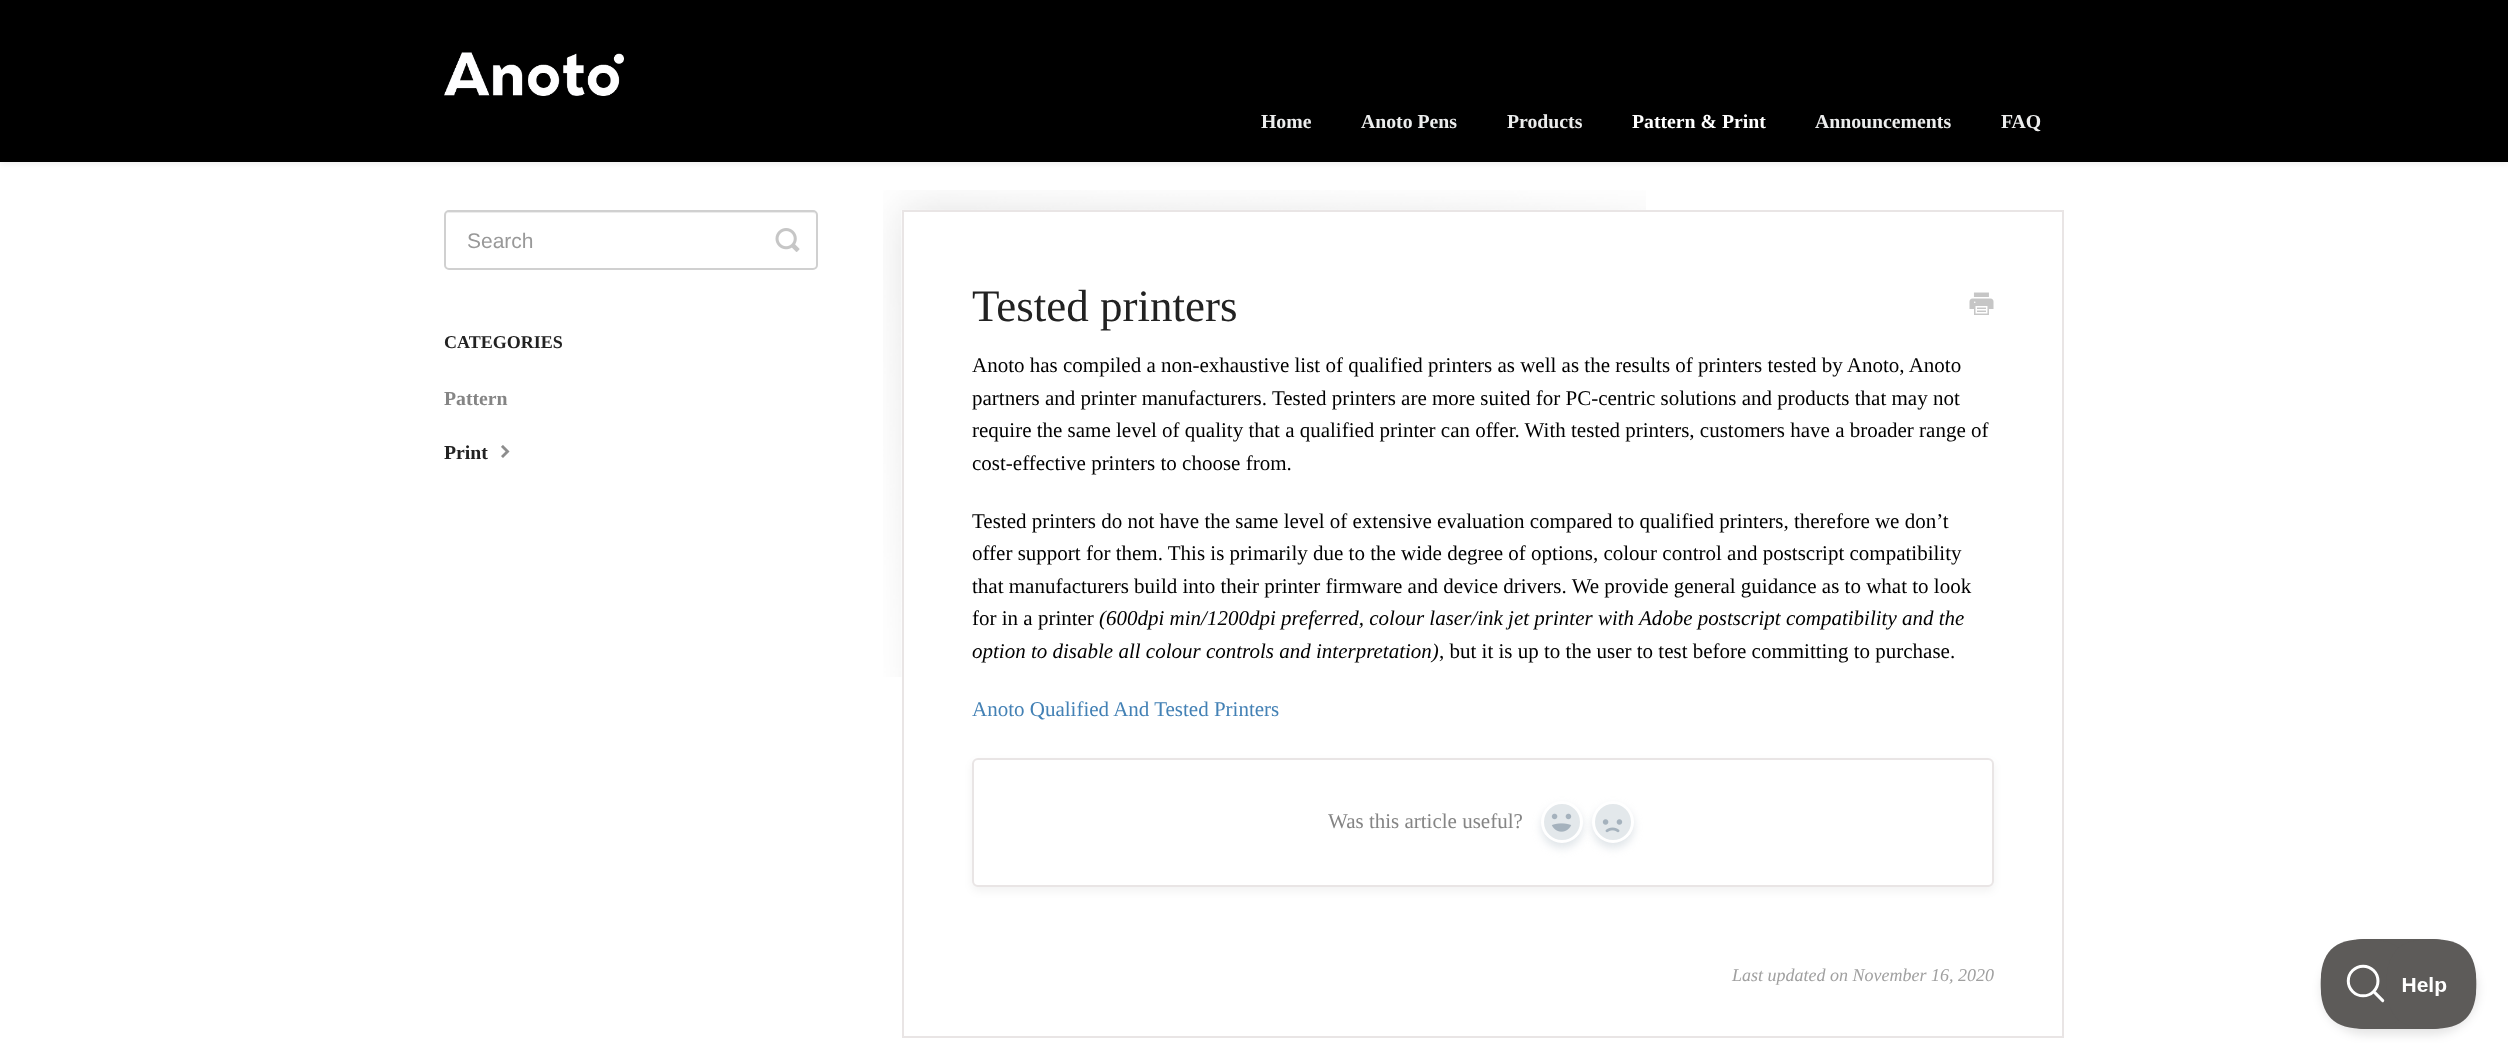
<svg xmlns="http://www.w3.org/2000/svg" width="2508" height="1043">
<style>
.a{font:bold 19.75px Liberation Serif;fill:#eceded}
.b{font:bold 19.75px Liberation Serif;fill:#fff}
.c{font:21px Liberation Sans;fill:#999}
.d{font:bold 18px Liberation Serif;fill:#222}
.e{font:bold 19.75px Liberation Serif;fill:#858585}
.f{font:bold 19.75px Liberation Serif;fill:#222}
.g{font:45px Liberation Serif;fill:#222}
.h{font:21px Liberation Serif;fill:#000}
.i{font:italic 21px Liberation Serif;fill:#000}
.j{font:21px Liberation Serif;fill:#4381b5}
.k{font:21px Liberation Serif;fill:#858585}
.l{font:italic 18px Liberation Serif;fill:#a0a0a0}
</style>
<rect width="100%" height="100%" fill="#fff"/>
<path fill="#00000012" filter="blur(3px)" d="M0 2h2508v162H0z"/>
<path fill="#000" d="M0 0h2508v162H0z"/>
<image href="1.png" x="444" y="52" width="180" height="44"/>
<path fill="#ececec" d="M448 213h365c2 0 3 1 3 3c0-2-1-4-3-4h-364l-2 1l-1 3c0-2 1-3 2-3z"/>
<rect fill="none" stroke="#d0d0d0" stroke-width="2" x="445" y="211" width="372" height="58" rx="4"/>
<image href="2.png" x="775" y="228" width="25" height="24"/>
<image href="3.png" x="501" y="445" width="9" height="13"/>
<image href="4.png" x="883" y="190" width="763" height="487"/>
<path fill="none" stroke="#e9e5e5" stroke-width="2" d="M903 211h1160v826H903z"/>
<image href="5.png" x="1969" y="292" width="25" height="23"/>
<rect fill="#0000000d" filter="blur(4.5px)" x="972" y="762" width="1022" height="129" rx="6"/>
<rect fill="#fff" stroke="#e9e5e5" stroke-width="2" x="973" y="759" width="1020" height="127" rx="5"/>
<rect fill="#c1cbd480" filter="blur(4.5px)" x="1541" y="806" width="42" height="42" rx="21"/>
<circle fill="#e3e8eb" stroke="#fff" stroke-width="3" cx="1562" cy="822" r="19.5"/>
<image href="6.png" x="1551" y="813" width="21" height="19"/>
<rect fill="#c1cbd480" filter="blur(4.5px)" x="1592" y="806" width="42" height="42" rx="21"/>
<circle fill="#e3e8eb" stroke="#fff" stroke-width="3" cx="1613" cy="822" r="19.5"/>
<image href="7.png" x="1602" y="819" width="21" height="14"/>
<rect fill="#0000001a" filter="blur(5px)" x="2321" y="945" width="157" height="90" rx="45"/>
<image href="8.png" x="2320" y="939" width="157" height="90"/>
<text class="a" x="1261" y="128">Home</text>
<text class="a" x="1361" y="128">Anoto Pens</text>
<text class="a" x="1507" y="128">Products</text>
<text class="b" x="1632" y="128">Pattern &amp; Print</text>
<text class="a" x="1815" y="128">Announcements</text>
<text class="a" x="2001" y="128">FAQ</text>
<text class="c" x="467" y="248">Search</text>
<text class="d" x="444" y="348">CATEGORIES</text>
<text class="e" x="444" y="405">Pattern</text>
<text class="f" x="444" y="459">Print</text>
<text class="g" x="972" y="321">Tested printers</text>
<text class="h" x="972" y="372">Anoto has compiled a non-exhaustive list of qualified printers as well as the results of printers tested by Anoto, Anoto</text>
<text class="h" x="972" y="405">partners and printer manufacturers. Tested printers are more suited for PC-centric solutions and products that may not</text>
<text class="h" x="972" y="437">require the same level of quality that a qualified printer can offer. With tested printers, customers have a broader range of</text>
<text class="h" x="972" y="470">cost-effective printers to choose from.</text>
<text class="h" x="972" y="528">Tested printers do not have the same level of extensive evaluation compared to qualified printers, therefore we don’t</text>
<text class="h" x="972" y="560">offer support for them. This is primarily due to the wide degree of options, colour control and postscript compatibility</text>
<text class="h" x="972" y="593">that manufacturers build into their printer firmware and device drivers. We provide general guidance as to what to look</text>
<text class="h" x="972" y="625">for in a printer</text>
<text class="i" x="1099" y="625">(600dpi min/1200dpi preferred, colour laser/ink jet printer with Adobe postscript compatibility and the</text>
<text class="i" x="972" y="658">option to disable all colour controls and interpretation)</text>
<text class="h" x="1439" y="658">, but it is up to the user to test before committing to purchase.</text>
<text class="j" x="972" y="716">Anoto Qualified And Tested Printers</text>
<text class="k" x="1328" y="828">Was this article useful?</text>
<text class="l" x="1732" y="981">Last updated on November 16, 2020</text>
</svg>
